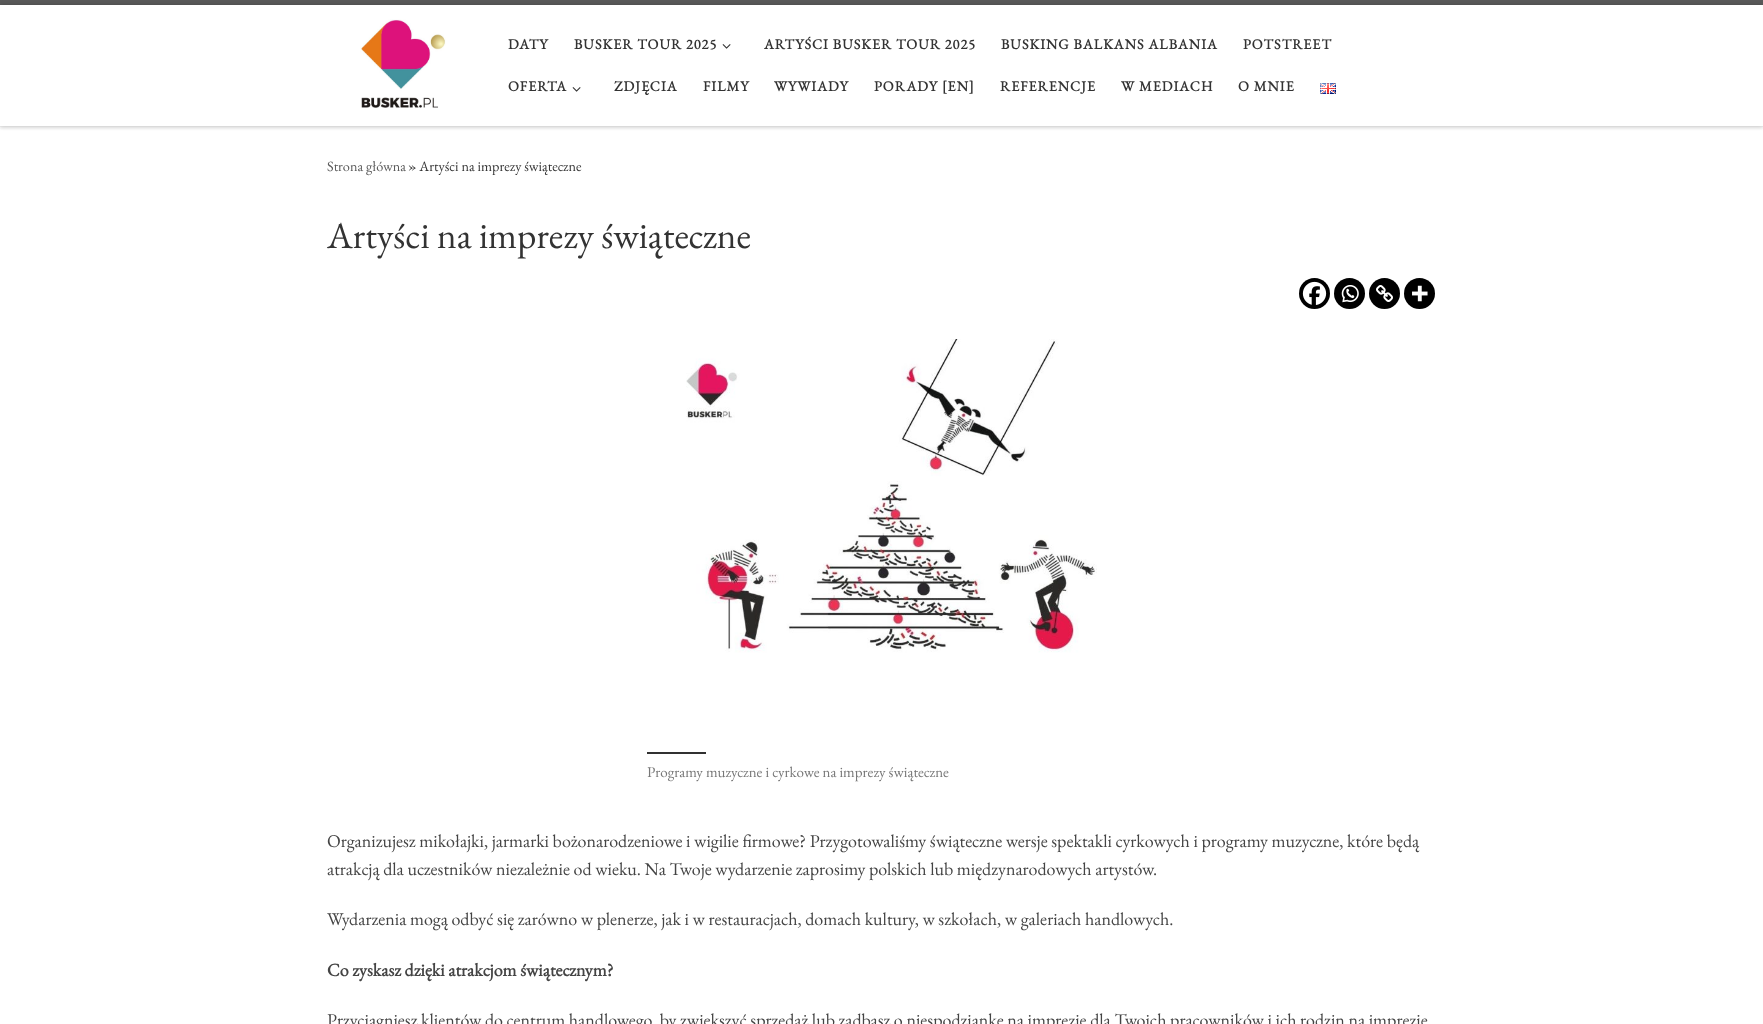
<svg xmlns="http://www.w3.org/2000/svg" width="1763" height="1024">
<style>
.a{font:bold 14.25px EB Garamond;letter-spacing:1px;fill:#333}
.b{font:14.25px EB Garamond;fill:#5a5a5a}
.c{font:14.25px EB Garamond;fill:#333}
.d{font:37.25px EB Garamond;fill:#333}
.e{font:15px EB Garamond;fill:#777}
.f{font:18px EB Garamond;fill:#444}
.g{font:bold 18px EB Garamond;fill:#444}
</style>
<defs>
<clipPath id="clip1"><path d="M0 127h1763v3H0z"/></clipPath>
<clipPath id="clip2"><path d="M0 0h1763v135h-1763zm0 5h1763v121h-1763z" clip-rule="evenodd"/></clipPath>
</defs>
<rect width="100%" height="100%" fill="#fff"/>
<g clip-path="url(#clip1)">
<path fill="#66666614" filter="blur(1px)" d="M0 2h1763v127H0z"/>
</g>
<path fill="#5a5a5a" d="M0 0h1763v5H0z"/>
<path fill="#efefef" d="M0 126h1763v1H0z"/>
<g clip-path="url(#clip2)">
<path fill="#00000033" filter="blur(2.5px)" d="M0 5h1763v121H0z"/>
</g>
<image href="1.png" x="360" y="19" width="86" height="89"/>
<image href="2.png" x="722" y="44" width="9" height="5"/>
<image href="2.png" x="572" y="87" width="9" height="5"/>
<image href="3.png" x="1320" y="83" width="16" height="11"/>
<circle fill="#000" cx="1314.5" cy="293.5" r="15.5"/>
<image href="4.png" x="1302" y="281" width="25" height="24"/>
<circle fill="#000" cx="1349.5" cy="293.5" r="15.5"/>
<image href="5.png" x="1341" y="285" width="18" height="18"/>
<circle fill="#000" cx="1384.5" cy="293.5" r="15.5"/>
<image href="6.png" x="1376" y="285" width="17" height="17"/>
<circle fill="#000" cx="1419.5" cy="293.5" r="15.5"/>
<image href="7.png" x="1412" y="285" width="16" height="17"/>
<image href="8.png" x="686" y="339" width="411" height="314"/>
<path fill="#313131" d="M647 752h59v2H647z"/>
<text class="a" x="508" y="49">DATY</text>
<text class="a" x="574" y="49">BUSKER TOUR 2025</text>
<text class="a" x="764" y="49">ARTYŚCI BUSKER TOUR 2025</text>
<text class="a" x="1001" y="49">BUSKING BALKANS ALBANIA</text>
<text class="a" x="1243" y="49">POTSTREET</text>
<text class="a" x="508" y="91">OFERTA</text>
<text class="a" x="614" y="91">ZDJĘCIA</text>
<text class="a" x="703" y="91">FILMY</text>
<text class="a" x="774" y="91">WYWIADY</text>
<text class="a" x="874" y="91">PORADY [EN]</text>
<text class="a" x="1000" y="91">REFERENCJE</text>
<text class="a" x="1121" y="91">W MEDIACH</text>
<text class="a" x="1238" y="91">O MNIE</text>
<text class="b" x="327" y="171">Strona główna</text>
<text class="c" x="408" y="171">» Artyści na imprezy świąteczne</text>
<text class="d" x="327" y="248">Artyści na imprezy świąteczne</text>
<text class="e" x="647" y="777">Programy muzyczne i cyrkowe na imprezy świąteczne</text>
<text class="f" x="327" y="847">Organizujesz mikołajki, jarmarki bożonarodzeniowe i wigilie firmowe? Przygotowaliśmy świąteczne wersje spektakli cyrkowych i programy muzyczne, które będą</text>
<text class="f" x="327" y="875">atrakcją dla uczestników niezależnie od wieku. Na Twoje wydarzenie zaprosimy polskich lub międzynarodowych artystów.</text>
<text class="f" x="327" y="925">Wydarzenia mogą odbyć się zarówno w plenerze, jak i w restauracjach, domach kultury, w szkołach, w galeriach handlowych.</text>
<text class="g" x="327" y="976">Co zyskasz dzięki atrakcjom świątecznym?</text>
<text class="f" x="327" y="1026">Przyciągniesz klientów do centrum handlowego, by zwiększyć sprzedaż lub zadbasz o niespodziankę na imprezie dla Twoich pracowników i ich rodzin na imprezie</text>
</svg>
